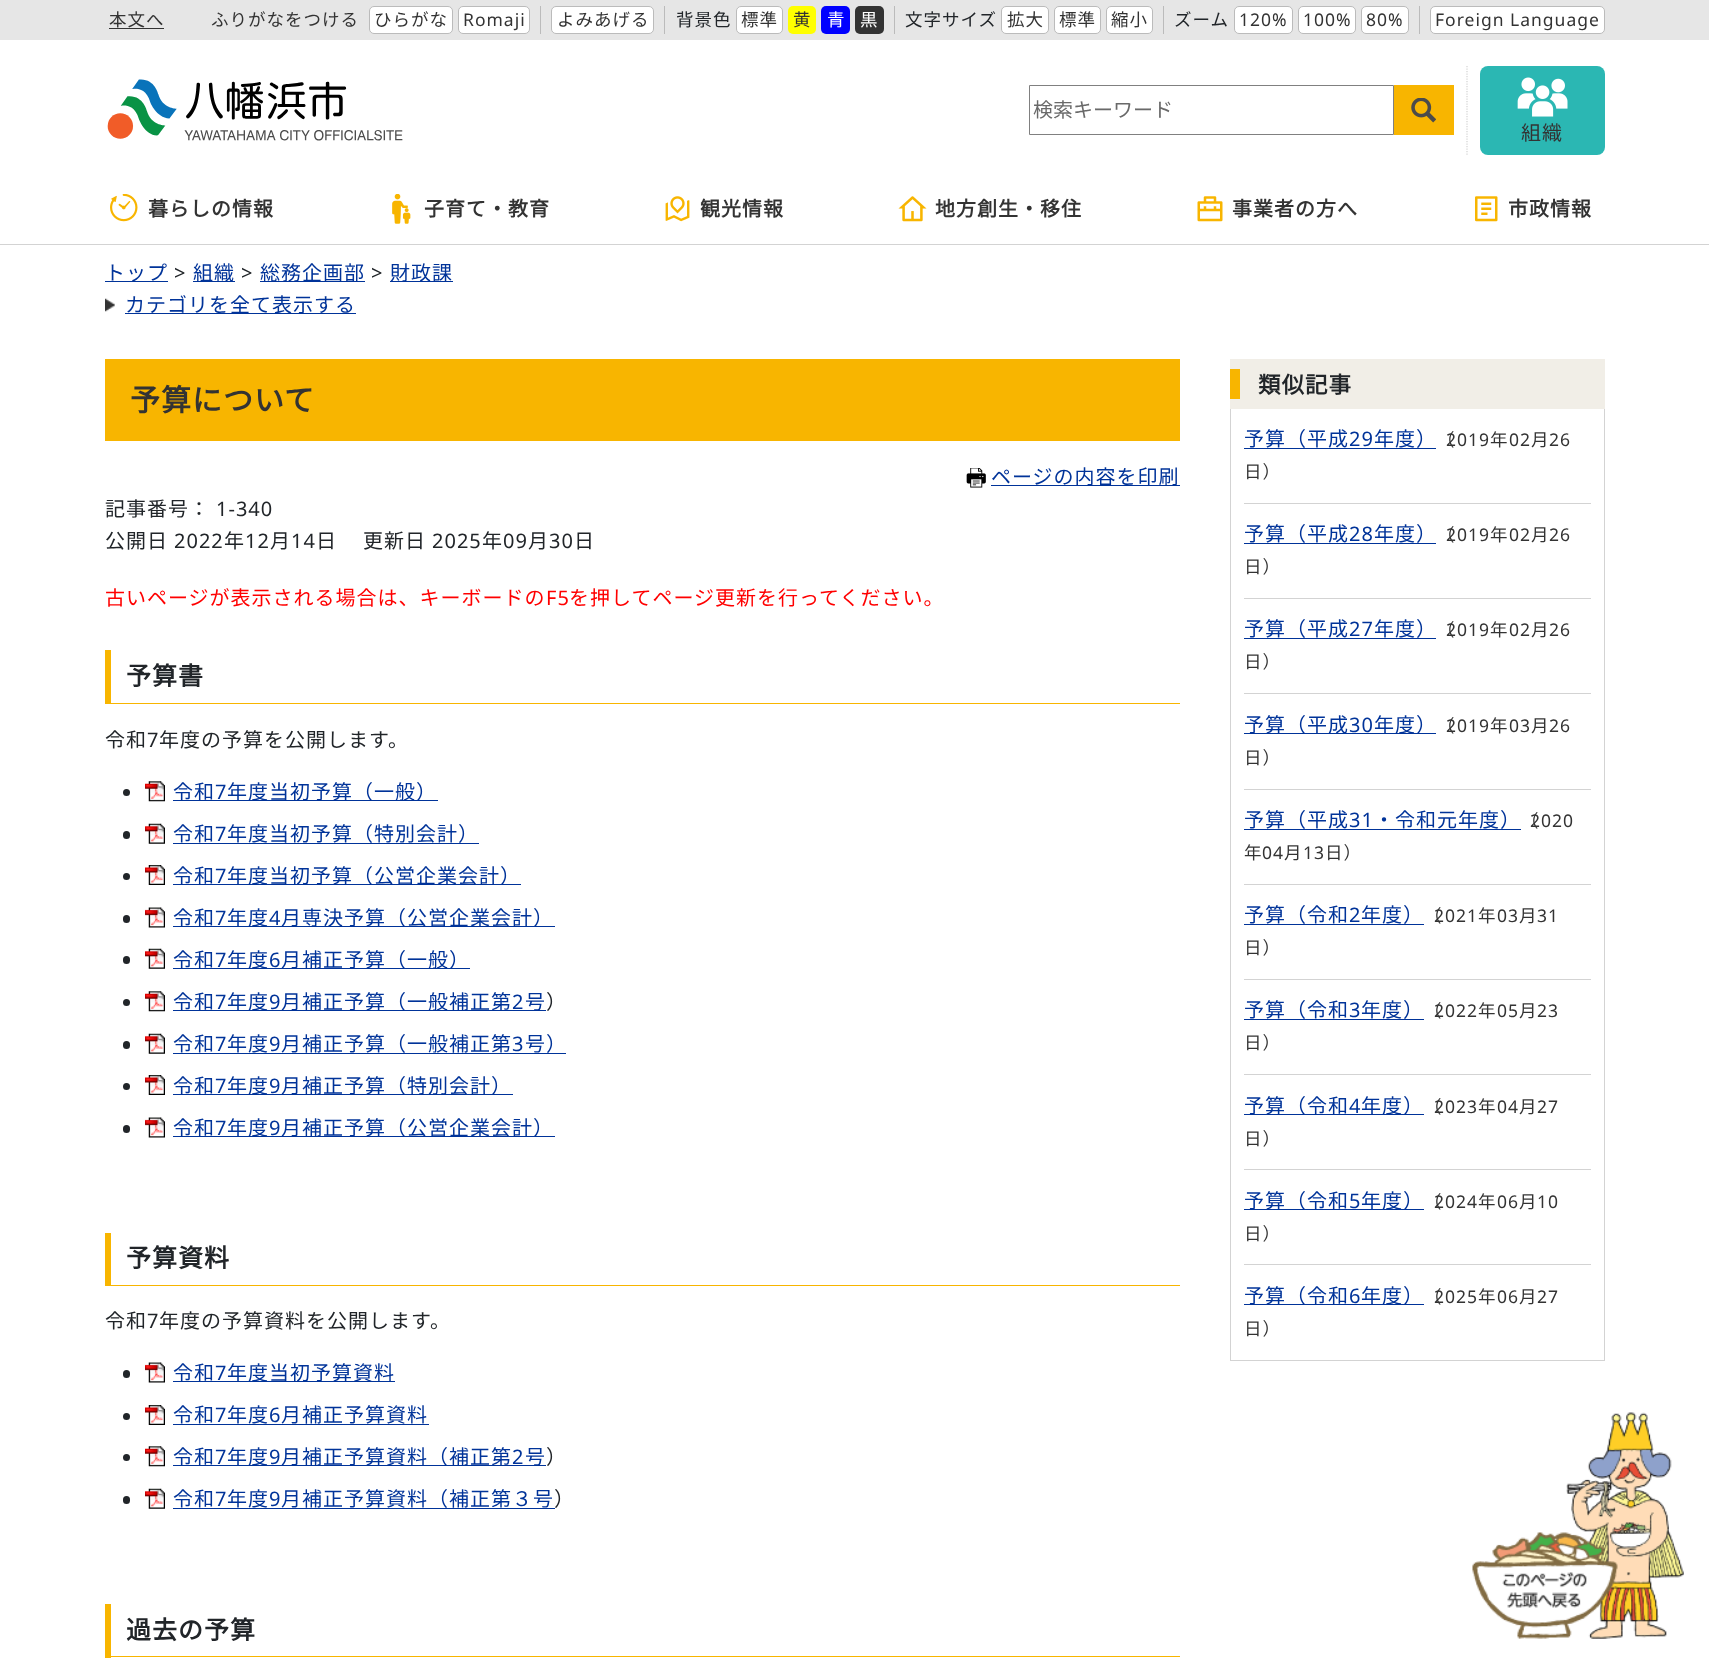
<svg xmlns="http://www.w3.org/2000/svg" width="1709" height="1666">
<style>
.a{font:100 17.5px Noto Sans JP;letter-spacing:1px;fill:#333}
.b{font:17.5px Noto Sans;letter-spacing:1px;fill:#333}
.c{font:100 17.5px Noto Sans JP;letter-spacing:1px;fill:#212529}
.d{font:100 17.5px Noto Sans JP;letter-spacing:1px;fill:#fff}
.e{font:100 20px Noto Sans JP;fill:#696969}
.f{font:100 20px Noto Sans JP;letter-spacing:1px;fill:#333}
.g{font:bold 20px Noto Sans JP;letter-spacing:1px;fill:#333}
.h{font:100 20px Noto Sans JP;letter-spacing:1px;fill:#039}
.i{font:20px Noto Sans;letter-spacing:1px;fill:#212529}
.j{font:bold 30px Noto Sans JP;letter-spacing:1px;fill:#333}
.k{font:100 20px Noto Sans JP;letter-spacing:1px;fill:#212529}
.l{font:100 20px Noto Sans JP;letter-spacing:1px;fill:#f00}
.m{font:20px Noto Sans;letter-spacing:1px;fill:#f00}
.n{font:bold 25px Noto Sans JP;letter-spacing:1px;fill:#212529}
.o{font:20px Noto Sans;letter-spacing:1px;fill:#039}
.p{font:bold 22.5px Noto Sans JP;letter-spacing:1px;fill:#212529}
</style>
<rect width="100%" height="100%" fill="#fff"/>
<path fill="#e6e6e6" d="M0 0h1709v40H0z"/>
<path fill="#333" d="M109 28h55v1H109z"/>
<rect fill="#fff" stroke="#bbb" x="369.5" y="6.5" width="83" height="27" rx="4.5"/>
<rect fill="#fff" stroke="#bbb" x="458.5" y="6.5" width="71" height="27" rx="4.5"/>
<path fill="#bbb" d="M540 6h1v28H540z"/>
<rect fill="#fff" stroke="#bbb" x="551.5" y="6.5" width="102" height="27" rx="4.5"/>
<path fill="#bbb" d="M664 6h1v28H664z"/>
<rect fill="#fff" stroke="#bbb" x="736.5" y="6.5" width="46" height="27" rx="4.5"/>
<rect fill="#ff0" x="788" y="6" width="28" height="28" rx="5"/>
<rect fill="#00f" x="821" y="6" width="29" height="28" rx="5"/>
<rect fill="#333" x="855" y="6" width="29" height="28" rx="5"/>
<path fill="#bbb" d="M894 6h1v28H894z"/>
<rect fill="#fff" stroke="#bbb" x="1001.5" y="6.5" width="47" height="27" rx="4.5"/>
<rect fill="#fff" stroke="#bbb" x="1054.5" y="6.5" width="46" height="27" rx="4.5"/>
<rect fill="#fff" stroke="#bbb" x="1106.5" y="6.5" width="46" height="27" rx="4.5"/>
<path fill="#bbb" d="M1163 6h1v28H1163z"/>
<rect fill="#fff" stroke="#bbb" x="1234.5" y="6.5" width="58" height="27" rx="4.5"/>
<rect fill="#fff" stroke="#bbb" x="1298.5" y="6.5" width="57" height="27" rx="4.5"/>
<rect fill="#fff" stroke="#bbb" x="1361.5" y="6.5" width="47" height="27" rx="4.5"/>
<path fill="#bbb" d="M1419 6h1v28H1419z"/>
<rect fill="#fff" stroke="#bbb" x="1430.5" y="6.5" width="174" height="27" rx="4.5"/>
<image href="1.png" x="107" y="79" width="296" height="62"/>
<path fill="none" stroke="#808080" d="M1029.5 85.5h364v49H1029.5z"/>
<path fill="#f8b500" d="M1394 85h60v50H1394z"/>
<image href="2.png" x="1411" y="98" width="25" height="25"/>
<path fill="none" stroke="#d3d3d3" stroke-width="1.2" stroke-dasharray="1.25 1.25" d="M1467 66v89"/>
<rect fill="#2bb7b3" x="1480" y="66" width="125" height="89" rx="8"/>
<image href="3.png" x="1517" y="77" width="51" height="40"/>
<path fill="#d3d3d3" d="M0 244h1709v1H0z"/>
<image href="4.png" x="110" y="194" width="28" height="28"/>
<image href="5.png" x="392" y="194" width="19" height="30"/>
<image href="6.png" x="665" y="196" width="25" height="26"/>
<image href="7.png" x="898" y="196" width="29" height="26"/>
<image href="8.png" x="1197" y="196" width="26" height="26"/>
<image href="9.png" x="1475" y="196" width="23" height="26"/>
<path fill="#039" d="M105 281h63v1H105z"/>
<path fill="#039" d="M193 281h42v1H193z"/>
<path fill="#039" d="M260 281h105v1H260z"/>
<path fill="#039" d="M390 281h63v1H390z"/>
<image href="10.png" x="105" y="298" width="10" height="14"/>
<path fill="#039" d="M125 313h231v1H125z"/>
<path fill="#f8b500" d="M105 359h1075v82H105z"/>
<image href="11.png" x="966" y="468" width="20" height="20"/>
<path fill="#039" d="M991 485h189v1H991z"/>
<path fill="#f8b500" d="M105 703h1075v1H105z"/>
<path fill="#f8b500" d="M105 650h6v54H105z"/>
<circle fill="#212529" cx="126.5" cy="792.5" r="3.5"/>
<image href="12.png" x="145" y="781" width="20" height="21"/>
<path fill="#039" d="M173 800h265v1H173z"/>
<rect fill="#212529" x="123" y="831" width="7" height="8" rx="3.5"/>
<image href="13.png" x="145" y="823" width="20" height="21"/>
<path fill="#039" d="M173 843h306v1H173z"/>
<circle fill="#212529" cx="126.5" cy="876.5" r="3.5"/>
<image href="14.png" x="145" y="865" width="20" height="20"/>
<path fill="#039" d="M173 884h348v1H173z"/>
<rect fill="#212529" x="123" y="915" width="7" height="8" rx="3.5"/>
<image href="15.png" x="145" y="907" width="20" height="21"/>
<path fill="#039" d="M173 926h382v1H173z"/>
<rect fill="#212529" x="123" y="956" width="7" height="8" rx="3.5"/>
<image href="13.png" x="145" y="948" width="20" height="21"/>
<path fill="#039" d="M173 968h297v1H173z"/>
<circle fill="#212529" cx="126.5" cy="1002.5" r="3.5"/>
<image href="16.png" x="145" y="991" width="20" height="21"/>
<path fill="#039" d="M173 1010h373v1H173z"/>
<rect fill="#212529" x="123" y="1041" width="7" height="8" rx="3.5"/>
<image href="13.png" x="145" y="1033" width="20" height="21"/>
<path fill="#039" d="M173 1053h393v1H173z"/>
<circle fill="#212529" cx="126.5" cy="1086.5" r="3.5"/>
<image href="14.png" x="145" y="1075" width="20" height="20"/>
<path fill="#039" d="M173 1094h340v1H173z"/>
<rect fill="#212529" x="123" y="1125" width="7" height="8" rx="3.5"/>
<image href="15.png" x="145" y="1117" width="20" height="21"/>
<path fill="#039" d="M173 1136h382v1H173z"/>
<path fill="#f8b500" d="M105 1285h1075v1H105z"/>
<path fill="#f8b500" d="M105 1233h6v53H105z"/>
<rect fill="#212529" x="123" y="1370" width="7" height="8" rx="3.5"/>
<image href="15.png" x="145" y="1362" width="20" height="21"/>
<path fill="#039" d="M173 1381h222v1H173z"/>
<circle fill="#212529" cx="126.5" cy="1416.5" r="3.5"/>
<image href="14.png" x="145" y="1405" width="20" height="20"/>
<path fill="#039" d="M173 1424h256v1H173z"/>
<circle fill="#212529" cx="126.5" cy="1457.5" r="3.5"/>
<image href="16.png" x="145" y="1446" width="20" height="21"/>
<path fill="#039" d="M173 1465h373v1H173z"/>
<rect fill="#212529" x="123" y="1496" width="7" height="8" rx="3.5"/>
<image href="13.png" x="145" y="1488" width="20" height="21"/>
<path fill="#039" d="M173 1508h382v1H173z"/>
<path fill="#f8b500" d="M105 1656h1075v1H105z"/>
<path fill="#f8b500" d="M105 1604h6v54H105z"/>
<path fill="#f1eee7" d="M1230 359h375v50H1230z"/>
<path fill="#f8b500" d="M1230 369h10v30H1230z"/>
<path fill="#d3d3d3" d="M1604 409h1v952H1604z"/>
<path fill="#d3d3d3" d="M1230 1360h375v1H1230z"/>
<path fill="#d3d3d3" d="M1230 409h1v952H1230z"/>
<path fill="#d3d3d3" d="M1244 503h347v1H1244z"/>
<path fill="#039" d="M1244 448h192v1H1244z"/>
<path fill="#d3d3d3" d="M1244 598h347v1H1244z"/>
<path fill="#039" d="M1244 543h192v1H1244z"/>
<path fill="#d3d3d3" d="M1244 693h347v1H1244z"/>
<path fill="#039" d="M1244 638h192v1H1244z"/>
<path fill="#d3d3d3" d="M1244 789h347v1H1244z"/>
<path fill="#039" d="M1244 733h192v1H1244z"/>
<path fill="#d3d3d3" d="M1244 884h347v1H1244z"/>
<path fill="#039" d="M1244 829h277v1H1244z"/>
<path fill="#d3d3d3" d="M1244 979h347v1H1244z"/>
<path fill="#039" d="M1244 924h180v1H1244z"/>
<path fill="#d3d3d3" d="M1244 1074h347v1H1244z"/>
<path fill="#039" d="M1244 1019h180v1H1244z"/>
<path fill="#d3d3d3" d="M1244 1169h347v1H1244z"/>
<path fill="#039" d="M1244 1114h180v1H1244z"/>
<path fill="#d3d3d3" d="M1244 1264h347v1H1244z"/>
<path fill="#039" d="M1244 1209h180v1H1244z"/>
<path fill="#039" d="M1244 1304h180v1H1244z"/>
<image href="17.png" x="1472" y="1412" width="212" height="227"/>
<text class="a" x="109" y="26">本文へ</text>
<text class="a" x="211" y="26">ふりがなをつける</text>
<text class="a" x="374" y="26">ひらがな</text>
<text class="b" x="463" y="26">Romaji</text>
<text class="a" x="557" y="26">よみあげる</text>
<text class="c" x="676" y="26">背景色</text>
<text class="a" x="741" y="26">標準</text>
<text class="a" x="793" y="26">黄</text>
<text class="d" x="827" y="26">青</text>
<text class="d" x="860" y="26">黒</text>
<text class="c" x="905" y="26">文字サイズ</text>
<text class="a" x="1007" y="26">拡大</text>
<text class="a" x="1059" y="26">標準</text>
<text class="a" x="1111" y="26">縮小</text>
<text class="c" x="1174" y="26">ズーム</text>
<text class="b" x="1239" y="26">120%</text>
<text class="b" x="1303" y="26">100%</text>
<text class="b" x="1366" y="26">80%</text>
<text class="b" x="1435" y="26">Foreign Language</text>
<text class="e" x="1033" y="117">検索キーワード</text>
<text class="f" x="1521" y="140">組織</text>
<text class="g" x="148" y="216">暮らしの情報</text>
<text class="g" x="424" y="216">子育て・教育</text>
<text class="g" x="700" y="216">観光情報</text>
<text class="g" x="935" y="216">地方創生・移住</text>
<text class="g" x="1232" y="216">事業者の方へ</text>
<text class="g" x="1508" y="216">市政情報</text>
<text class="h" x="105" y="280">トップ</text>
<text class="i" x="174" y="280">&gt;</text>
<text class="h" x="193" y="280">組織</text>
<text class="i" x="241" y="280">&gt;</text>
<text class="h" x="260" y="280">総務企画部</text>
<text class="i" x="371" y="280">&gt;</text>
<text class="h" x="390" y="280">財政課</text>
<text class="h" x="125" y="312">カテゴリを全て表示する</text>
<text class="j" x="130" y="411">予算について</text>
<text class="h" x="991" y="484">ページの内容を印刷</text>
<text class="k" x="105" y="516">記事番号：</text>
<text class="i" x="216" y="516">1-340</text>
<text class="k" x="105" y="548">公開日</text>
<text class="i" x="174" y="548">2022</text>
<text class="k" x="224" y="548">年</text>
<text class="i" x="245" y="548">12</text>
<text class="k" x="270" y="548">月</text>
<text class="i" x="291" y="548">14</text>
<text class="k" x="316" y="548">日</text>
<text class="k" x="363" y="548">更新日</text>
<text class="i" x="432" y="548">2025</text>
<text class="k" x="482" y="548">年</text>
<text class="i" x="503" y="548">09</text>
<text class="k" x="528" y="548">月</text>
<text class="i" x="549" y="548">30</text>
<text class="k" x="574" y="548">日</text>
<text class="l" x="105" y="605">古いページが表示される場合は、キーボードの</text>
<text class="m" x="546" y="605">F5</text>
<text class="l" x="569" y="605">を押してページ更新を行ってください。</text>
<text class="n" x="126" y="685">予算書</text>
<text class="k" x="105" y="747">令和</text>
<text class="i" x="147" y="747">7</text>
<text class="k" x="159" y="747">年度の予算を公開します。</text>
<text class="h" x="173" y="799">令和</text>
<text class="o" x="215" y="799">7</text>
<text class="h" x="227" y="799">年度当初予算（一般）</text>
<text class="h" x="173" y="841">令和</text>
<text class="o" x="215" y="841">7</text>
<text class="h" x="227" y="841">年度当初予算（特別会計）</text>
<text class="h" x="173" y="883">令和</text>
<text class="o" x="215" y="883">7</text>
<text class="h" x="227" y="883">年度当初予算（公営企業会計）</text>
<text class="h" x="173" y="925">令和</text>
<text class="o" x="215" y="925">7</text>
<text class="h" x="227" y="925">年度</text>
<text class="o" x="269" y="925">4</text>
<text class="h" x="281" y="925">月専決予算（公営企業会計）</text>
<text class="h" x="173" y="967">令和</text>
<text class="o" x="215" y="967">7</text>
<text class="h" x="227" y="967">年度</text>
<text class="o" x="269" y="967">6</text>
<text class="h" x="281" y="967">月補正予算（一般）</text>
<text class="h" x="173" y="1009">令和</text>
<text class="o" x="215" y="1009">7</text>
<text class="h" x="227" y="1009">年度</text>
<text class="o" x="269" y="1009">9</text>
<text class="h" x="281" y="1009">月補正予算（一般補正第</text>
<text class="o" x="512" y="1009">2</text>
<text class="h" x="525" y="1009">号</text>
<text class="k" x="546" y="1009">）</text>
<text class="h" x="173" y="1051">令和</text>
<text class="o" x="215" y="1051">7</text>
<text class="h" x="227" y="1051">年度</text>
<text class="o" x="269" y="1051">9</text>
<text class="h" x="281" y="1051">月補正予算（一般補正第</text>
<text class="o" x="512" y="1051">3</text>
<text class="h" x="525" y="1051">号）</text>
<text class="h" x="173" y="1093">令和</text>
<text class="o" x="215" y="1093">7</text>
<text class="h" x="227" y="1093">年度</text>
<text class="o" x="269" y="1093">9</text>
<text class="h" x="281" y="1093">月補正予算（特別会計）</text>
<text class="h" x="173" y="1135">令和</text>
<text class="o" x="215" y="1135">7</text>
<text class="h" x="227" y="1135">年度</text>
<text class="o" x="269" y="1135">9</text>
<text class="h" x="281" y="1135">月補正予算（公営企業会計）</text>
<text class="n" x="126" y="1267">予算資料</text>
<text class="k" x="105" y="1328">令和</text>
<text class="i" x="147" y="1328">7</text>
<text class="k" x="159" y="1328">年度の予算資料を公開します。</text>
<text class="h" x="173" y="1380">令和</text>
<text class="o" x="215" y="1380">7</text>
<text class="h" x="227" y="1380">年度当初予算資料</text>
<text class="h" x="173" y="1422">令和</text>
<text class="o" x="215" y="1422">7</text>
<text class="h" x="227" y="1422">年度</text>
<text class="o" x="269" y="1422">6</text>
<text class="h" x="281" y="1422">月補正予算資料</text>
<text class="h" x="173" y="1464">令和</text>
<text class="o" x="215" y="1464">7</text>
<text class="h" x="227" y="1464">年度</text>
<text class="o" x="269" y="1464">9</text>
<text class="h" x="281" y="1464">月補正予算資料（補正第</text>
<text class="o" x="512" y="1464">2</text>
<text class="h" x="525" y="1464">号</text>
<text class="k" x="546" y="1464">）</text>
<text class="h" x="173" y="1506">令和</text>
<text class="o" x="215" y="1506">7</text>
<text class="h" x="227" y="1506">年度</text>
<text class="o" x="269" y="1506">9</text>
<text class="h" x="281" y="1506">月補正予算資料（補正第３号</text>
<text class="k" x="554" y="1506">）</text>
<text class="n" x="126" y="1639">過去の予算</text>
<text class="p" x="1258" y="393">類似記事</text>
<text class="h" x="1244" y="446">予算（平成</text>
<text class="o" x="1349" y="446">29</text>
<text class="h" x="1374" y="446">年度）</text>
<text class="a" x="1437" y="446">（</text>
<text class="a" x="1490" y="446">年</text>
<text class="a" x="1531" y="446">月</text>
<text class="b" x="1446" y="446">2019</text>
<text class="b" x="1509" y="446">02</text>
<text class="b" x="1549" y="446">26</text>
<text class="a" x="1244" y="478">日）</text>
<text class="h" x="1244" y="541">予算（平成</text>
<text class="o" x="1349" y="541">28</text>
<text class="h" x="1374" y="541">年度）</text>
<text class="a" x="1437" y="541">（</text>
<text class="a" x="1490" y="541">年</text>
<text class="a" x="1531" y="541">月</text>
<text class="b" x="1446" y="541">2019</text>
<text class="b" x="1509" y="541">02</text>
<text class="b" x="1549" y="541">26</text>
<text class="a" x="1244" y="573">日）</text>
<text class="h" x="1244" y="636">予算（平成</text>
<text class="o" x="1349" y="636">27</text>
<text class="h" x="1374" y="636">年度）</text>
<text class="a" x="1437" y="636">（</text>
<text class="a" x="1490" y="636">年</text>
<text class="a" x="1531" y="636">月</text>
<text class="b" x="1446" y="636">2019</text>
<text class="b" x="1509" y="636">02</text>
<text class="b" x="1549" y="636">26</text>
<text class="a" x="1244" y="668">日）</text>
<text class="h" x="1244" y="732">予算（平成</text>
<text class="o" x="1349" y="732">30</text>
<text class="h" x="1374" y="732">年度）</text>
<text class="a" x="1437" y="732">（</text>
<text class="a" x="1490" y="732">年</text>
<text class="a" x="1531" y="732">月</text>
<text class="b" x="1446" y="732">2019</text>
<text class="b" x="1509" y="732">03</text>
<text class="b" x="1549" y="732">26</text>
<text class="a" x="1244" y="764">日）</text>
<text class="h" x="1244" y="827">予算（平成</text>
<text class="o" x="1349" y="827">31</text>
<text class="h" x="1374" y="827">・令和元年度）</text>
<text class="a" x="1521" y="827">（</text>
<text class="b" x="1530" y="827">2020</text>
<text class="a" x="1244" y="859">年</text>
<text class="b" x="1262" y="859">04</text>
<text class="a" x="1284" y="859">月</text>
<text class="b" x="1303" y="859">13</text>
<text class="a" x="1325" y="859">日）</text>
<text class="h" x="1244" y="922">予算（令和</text>
<text class="o" x="1349" y="922">2</text>
<text class="h" x="1361" y="922">年度）</text>
<text class="a" x="1424" y="922">（</text>
<text class="a" x="1478" y="922">年</text>
<text class="a" x="1519" y="922">月</text>
<text class="b" x="1434" y="922">2021</text>
<text class="b" x="1497" y="922">03</text>
<text class="b" x="1537" y="922">31</text>
<text class="a" x="1244" y="954">日）</text>
<text class="h" x="1244" y="1017">予算（令和</text>
<text class="o" x="1349" y="1017">3</text>
<text class="h" x="1361" y="1017">年度）</text>
<text class="a" x="1424" y="1017">（</text>
<text class="a" x="1478" y="1017">年</text>
<text class="a" x="1519" y="1017">月</text>
<text class="b" x="1434" y="1017">2022</text>
<text class="b" x="1497" y="1017">05</text>
<text class="b" x="1537" y="1017">23</text>
<text class="a" x="1244" y="1049">日）</text>
<text class="h" x="1244" y="1113">予算（令和</text>
<text class="o" x="1349" y="1113">4</text>
<text class="h" x="1361" y="1113">年度）</text>
<text class="a" x="1424" y="1113">（</text>
<text class="a" x="1478" y="1113">年</text>
<text class="a" x="1519" y="1113">月</text>
<text class="b" x="1434" y="1113">2023</text>
<text class="b" x="1497" y="1113">04</text>
<text class="b" x="1537" y="1113">27</text>
<text class="a" x="1244" y="1145">日）</text>
<text class="h" x="1244" y="1208">予算（令和</text>
<text class="o" x="1349" y="1208">5</text>
<text class="h" x="1361" y="1208">年度）</text>
<text class="a" x="1424" y="1208">（</text>
<text class="a" x="1478" y="1208">年</text>
<text class="a" x="1519" y="1208">月</text>
<text class="b" x="1434" y="1208">2024</text>
<text class="b" x="1497" y="1208">06</text>
<text class="b" x="1537" y="1208">10</text>
<text class="a" x="1244" y="1240">日）</text>
<text class="h" x="1244" y="1303">予算（令和</text>
<text class="o" x="1349" y="1303">6</text>
<text class="h" x="1361" y="1303">年度）</text>
<text class="a" x="1424" y="1303">（</text>
<text class="a" x="1478" y="1303">年</text>
<text class="a" x="1519" y="1303">月</text>
<text class="b" x="1434" y="1303">2025</text>
<text class="b" x="1497" y="1303">06</text>
<text class="b" x="1537" y="1303">27</text>
<text class="a" x="1244" y="1335">日）</text>
</svg>
